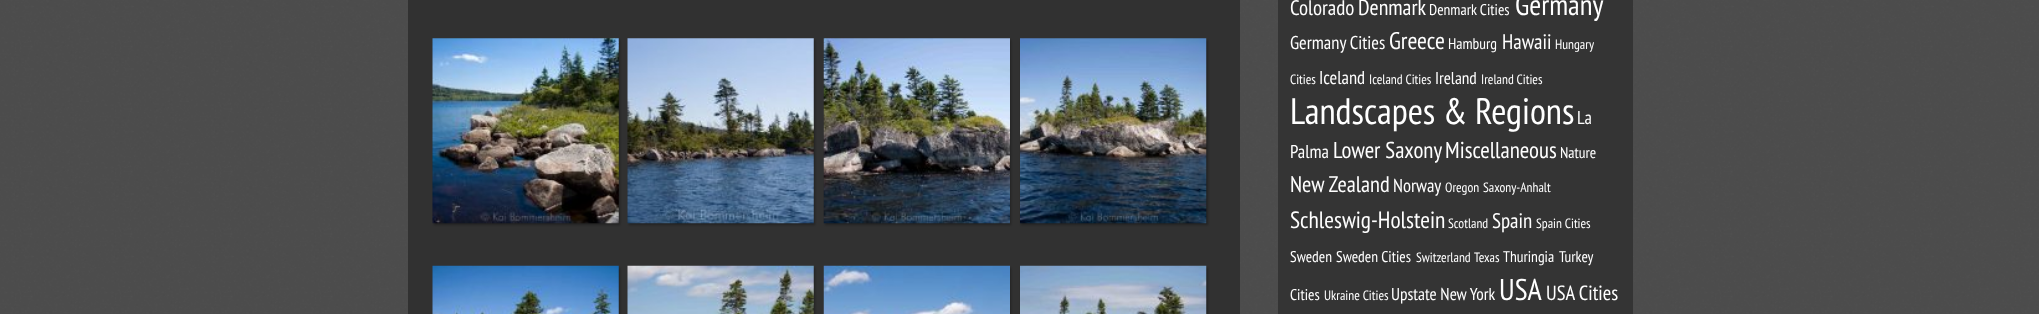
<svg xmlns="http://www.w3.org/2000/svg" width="2039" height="314">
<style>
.a{font:21px PT Sans Narrow;fill:#fff}
.b{font:22px PT Sans Narrow;fill:#fff}
.c{font:15.5px PT Sans Narrow;fill:#fff}
.d{font:29px PT Sans Narrow;fill:#fff}
.e{font:18.5px PT Sans Narrow;fill:#fff}
.f{font:24px PT Sans Narrow;fill:#fff}
.g{font:13.5px PT Sans Narrow;fill:#fff}
.h{font:17.25px PT Sans Narrow;fill:#fff}
.i{font:36.75px PT Sans Narrow;fill:#fff}
.j{font:23px PT Sans Narrow;fill:#fff}
.k{font:22.5px PT Sans Narrow;fill:#fff}
.l{font:23.5px PT Sans Narrow;fill:#fff}
.m{font:30px PT Sans Narrow;fill:#fff}
.n{font:20.5px PT Sans Narrow;fill:#fff}
</style>
<rect width="100%" height="100%" fill="#6a6a6a"/>
<image href="1.png" x="0" y="0" width="2039" height="314"/>
<path fill="#313131" d="M408 0h832v314H408z"/>
<path fill="#0000004d" filter="blur(1px)" d="M434 40h186v185H434z"/>
<image href="2.png" x="432" y="38" width="187" height="186"/>
<path fill="#0000004d" filter="blur(1px)" d="M629 40h186v185H629z"/>
<image href="3.png" x="627" y="38" width="187" height="186"/>
<path fill="#0000004d" filter="blur(1px)" d="M825 40h186v185H825z"/>
<image href="4.png" x="823" y="38" width="187" height="186"/>
<path fill="#0000004d" filter="blur(1px)" d="M1021 40h187v185H1021z"/>
<image href="5.png" x="1020" y="38" width="187" height="186"/>
<path fill="#0000004d" filter="blur(1px)" d="M434 268h186v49H434z"/>
<image href="6.png" x="432" y="265" width="187" height="49"/>
<path fill="#0000004d" filter="blur(1px)" d="M629 268h186v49H629z"/>
<image href="7.png" x="627" y="265" width="187" height="49"/>
<path fill="#0000004d" filter="blur(1px)" d="M825 268h186v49H825z"/>
<image href="8.png" x="823" y="265" width="187" height="49"/>
<path fill="#0000004d" filter="blur(1px)" d="M1021 268h187v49H1021z"/>
<image href="9.png" x="1020" y="265" width="187" height="49"/>
<path fill="#343434" d="M1278 0h355v314H1278z"/>
<text class="a" x="1290" y="15">Colorado</text>
<text class="b" x="1358" y="15">Denmark</text>
<text class="c" x="1429" y="15">Denmark Cities</text>
<text class="d" x="1515" y="15">Germany</text>
<text class="e" x="1290" y="49">Germany Cities</text>
<text class="f" x="1389" y="49">Greece</text>
<text class="c" x="1448" y="49">Hamburg</text>
<text class="a" x="1502" y="49">Hawaii</text>
<text class="g" x="1555" y="49">Hungary</text>
<text class="g" x="1290" y="84">Cities</text>
<text class="e" x="1319" y="84">Iceland</text>
<text class="g" x="1369" y="84">Iceland Cities</text>
<text class="h" x="1435" y="84">Ireland</text>
<text class="g" x="1481" y="84">Ireland Cities</text>
<text class="i" x="1290" y="124">Landscapes &amp; Regions</text>
<text class="e" x="1577" y="124">La</text>
<text class="e" x="1290" y="158">Palma</text>
<text class="j" x="1333" y="158">Lower Saxony</text>
<text class="j" x="1445" y="158">Miscellaneous</text>
<text class="c" x="1560" y="158">Nature</text>
<text class="k" x="1290" y="192">New Zealand</text>
<text class="e" x="1393" y="192">Norway</text>
<text class="g" x="1445" y="192">Oregon</text>
<text class="g" x="1483" y="192">Saxony-Anhalt</text>
<text class="l" x="1290" y="228">Schleswig-Holstein</text>
<text class="g" x="1448" y="228">Scotland</text>
<text class="a" x="1492" y="228">Spain</text>
<text class="g" x="1536" y="228">Spain Cities</text>
<text class="c" x="1290" y="262">Sweden</text>
<text class="c" x="1336" y="262">Sweden Cities</text>
<text class="g" x="1416" y="262">Switzerland</text>
<text class="g" x="1474" y="262">Texas</text>
<text class="c" x="1503" y="262">Thuringia</text>
<text class="c" x="1559" y="262">Turkey</text>
<text class="c" x="1290" y="300">Cities</text>
<text class="g" x="1324" y="300">Ukraine Cities</text>
<text class="h" x="1391" y="300">Upstate New York</text>
<text class="m" x="1499" y="300">USA</text>
<text class="n" x="1546" y="300">USA Cities</text>
</svg>
